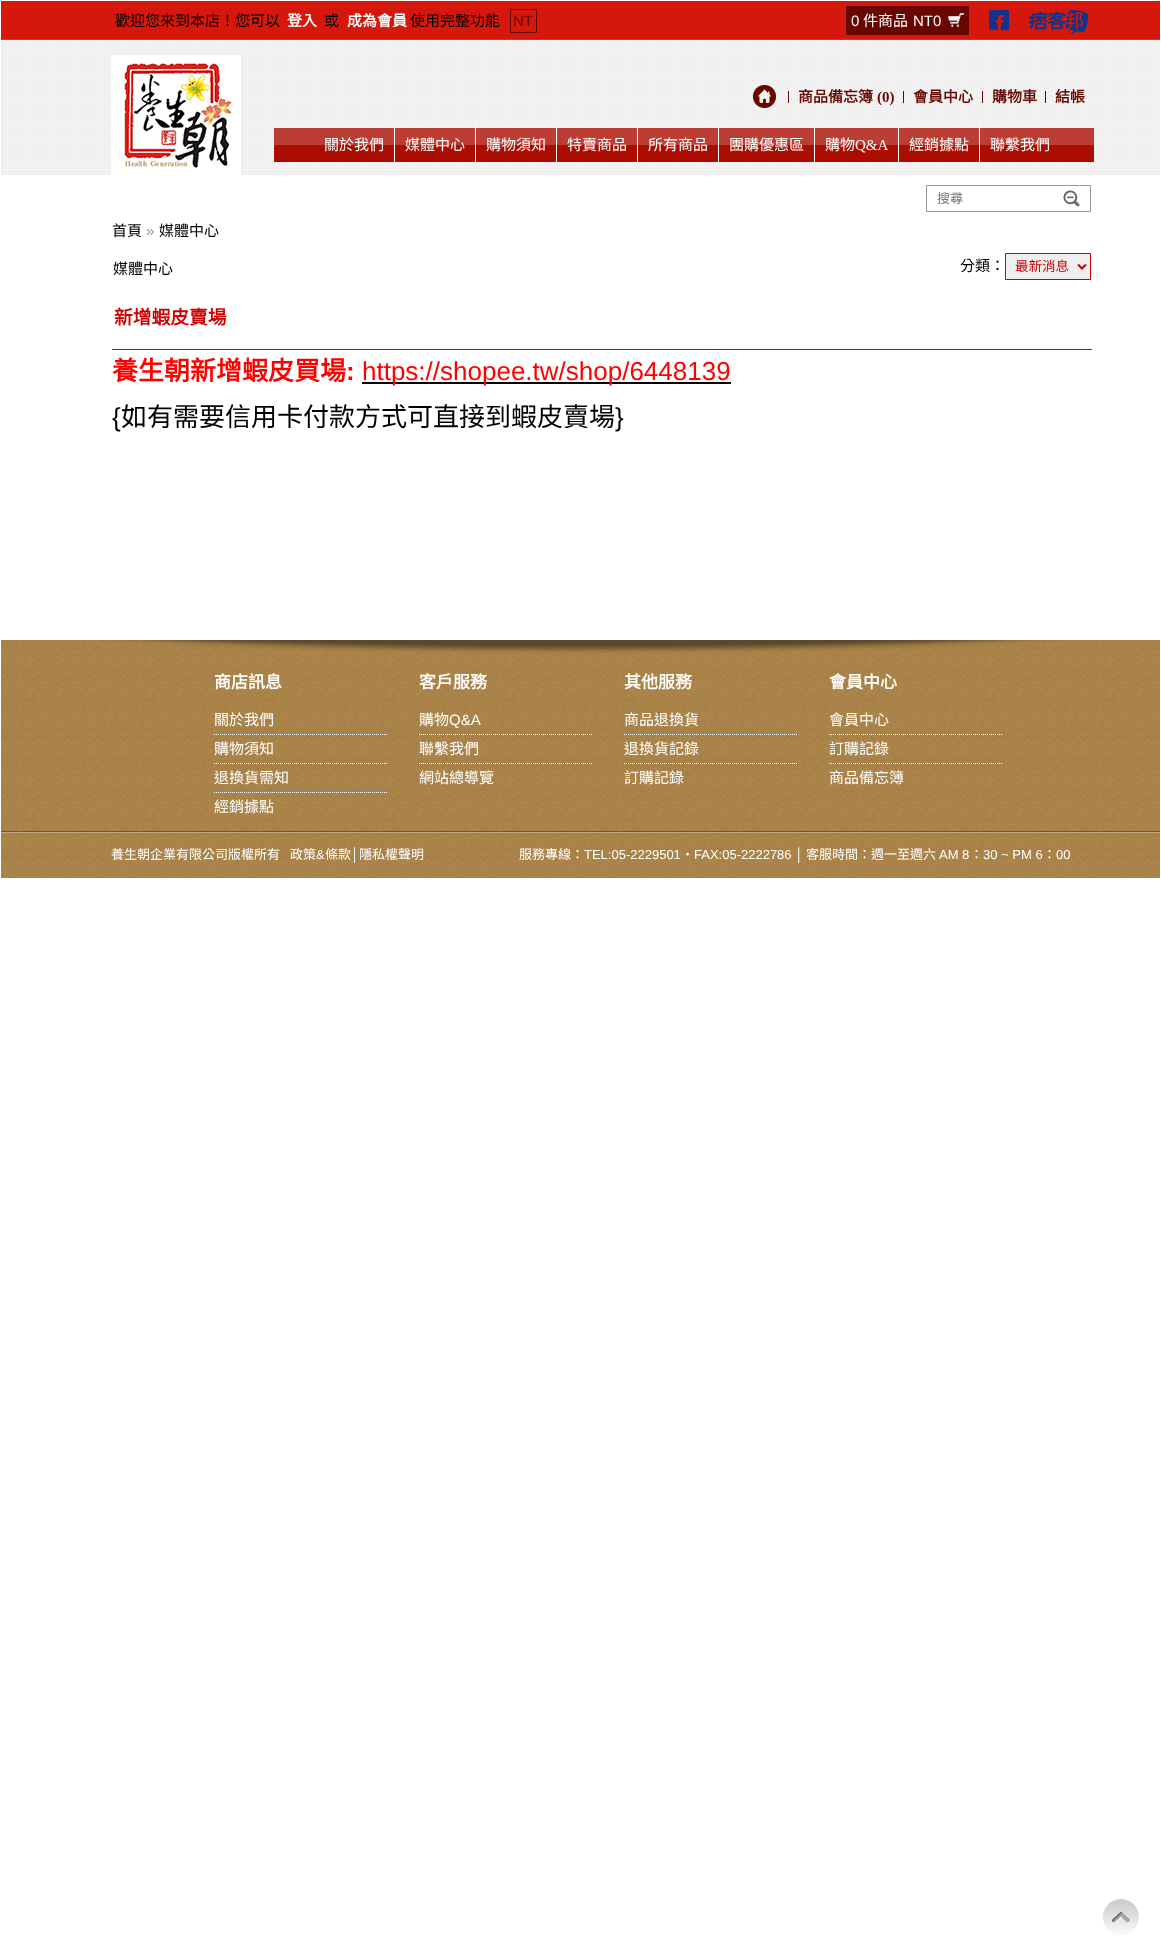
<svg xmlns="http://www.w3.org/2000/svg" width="1161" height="1942">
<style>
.a{font:15px Noto Sans CJK TC;fill:#000}
.b{font:bold 15px Noto Sans CJK TC;fill:#fff}
.c{font:15px Liberation Sans;fill:#670700}
.d{font:15px Liberation Sans;fill:#fff}
.e{font:15px Noto Sans CJK TC;fill:#fff}
.f{font:bold 15px Noto Sans CJK TC;fill:#670700}
.g{font:bold 15px Liberation Serif;fill:#670700}
.h{font:13px Noto Sans CJK TC;fill:#757575}
.i{font:15px Liberation Serif;fill:#fff}
.j{font:15px Liberation Sans;fill:#999}
.k{font:13.5px Noto Sans CJK TC;fill:#c00}
.l{font:bold 18.75px Noto Sans CJK TC;fill:#c00}
.m{font:bold 26px Noto Sans CJK TC;fill:#f00}
.n{font:bold 26px Liberation Sans;fill:#f00}
.o{font:26px Liberation Sans;fill:#f00}
.p{font:26px Liberation Sans;fill:#000}
.q{font:26px Noto Sans CJK TC;fill:#000}
.r{font:bold 17px Noto Sans CJK TC;fill:#fff}
.s{font:13px Noto Sans CJK TC;fill:#fff}
.t{font:13px Liberation Sans;fill:#fff}
</style>
<rect width="100%" height="100%" fill="#fff"/>
<path fill="#d5180b" d="M1 1h1159v39H1z"/>
<path fill="none" stroke="#777" stroke-dasharray="1 1" d="M1 39.5h1159"/>
<path fill="none" stroke="#670700" d="M510.5 9.5h26v23H510.5z"/>
<path fill="#670700" d="M846 6h123v29H846z"/>
<image href="1.png" x="948" y="13" width="16" height="14"/>
<image href="2.png" x="989" y="10" width="21" height="21"/>
<image href="3.png" x="1029" y="10" width="59" height="24"/>
<path fill="#f2f2f2" d="M1 40h1159v135H1z"/>
<image href="4.png" x="2" y="41" width="1156" height="82"/>
<image href="8.png" x="2" y="126" width="1156" height="49"/>
<path fill="#f2f2f2" d="M92 126h979v49H92z"/>
<image href="9.png" x="92" y="126" width="979" height="49"/>
<image href="5.png" x="111" y="55" width="130" height="120"/>
<image href="6.png" x="753" y="85" width="23" height="23"/>
<path fill="#670700" d="M788 91h1v12H788z"/>
<path fill="#670700" d="M903 91h1v12H903z"/>
<path fill="#670700" d="M982 91h1v12H982z"/>
<path fill="#670700" d="M1045 91h1v12H1045z"/>
<path fill="none" stroke="#999" d="M926.5 185.5h164v26H926.5z"/>
<image href="7.png" x="1063" y="190" width="17" height="17"/>
<image href="10.png" x="274" y="128" width="820" height="34"/>
<path fill="#fff" d="M394 125h1v40H394z"/>
<path fill="#fff" d="M475 125h1v40H475z"/>
<path fill="#fff" d="M556 125h1v40H556z"/>
<path fill="#fff" d="M637 125h1v40H637z"/>
<path fill="#fff" d="M718 125h1v40H718z"/>
<path fill="#fff" d="M814 125h1v40H814z"/>
<path fill="#fff" d="M898 125h1v40H898z"/>
<path fill="#fff" d="M979 125h1v40H979z"/>
<path fill="#efefef" stroke="#c00" d="M1005.5 253.5h85v26H1005.5z"/>
<path fill="none" stroke="#c00" stroke-width="2" d="M1078 264.5l4 4l4-4"/>
<path fill="#c00" d="M112 349h980v1H112z"/>
<path fill="#000" d="M362 382h369v2H362z"/>
<image href="11.png" x="1" y="640" width="1159" height="238"/>
<image href="12.png" x="97" y="640" width="966" height="14"/>
<path fill="none" stroke="#fff" stroke-dasharray="1 1" d="M214 734.5h174"/>
<path fill="none" stroke="#fff" stroke-dasharray="1 1" d="M214 763.5h174"/>
<path fill="none" stroke="#fff" stroke-dasharray="1 1" d="M214 792.5h174"/>
<path fill="none" stroke="#fff" stroke-dasharray="1 1" d="M419 734.5h174"/>
<path fill="none" stroke="#fff" stroke-dasharray="1 1" d="M419 763.5h174"/>
<path fill="none" stroke="#fff" stroke-dasharray="1 1" d="M624 734.5h174"/>
<path fill="none" stroke="#fff" stroke-dasharray="1 1" d="M624 763.5h174"/>
<path fill="none" stroke="#fff" stroke-dasharray="1 1" d="M829 734.5h174"/>
<path fill="none" stroke="#fff" stroke-dasharray="1 1" d="M829 763.5h174"/>
<image href="13.png" x="1" y="831" width="1159" height="2"/>
<image href="14.png" x="1103" y="1899" width="36" height="36"/>
<text class="a" x="115" y="26">歡迎您來到本店！您可以</text>
<text class="b" x="287" y="26">登入</text>
<text class="a" x="324" y="26">或</text>
<text class="b" x="347" y="26">成為會員</text>
<text class="a" x="410" y="26">使用完整功能</text>
<text class="c" x="513" y="26">NT</text>
<text class="d" x="851" y="26">0</text>
<text class="e" x="863" y="26">件商品</text>
<text class="d" x="913" y="26">NT0</text>
<text class="f" x="798" y="102">商品備忘簿</text>
<text class="g" x="877" y="102">(0)</text>
<text class="f" x="913" y="102">會員中心</text>
<text class="f" x="992" y="102">購物車</text>
<text class="f" x="1055" y="102">結帳</text>
<text class="h" x="937" y="203">搜尋</text>
<text class="e" x="324" y="150">關於我們</text>
<text class="e" x="405" y="150">媒體中心</text>
<text class="e" x="486" y="150">購物須知</text>
<text class="e" x="567" y="150">特賣商品</text>
<text class="e" x="648" y="150">所有商品</text>
<text class="e" x="729" y="150">團購優惠區</text>
<text class="e" x="825" y="150">購物</text>
<text class="i" x="855" y="150">Q&amp;A</text>
<text class="e" x="909" y="150">經銷據點</text>
<text class="e" x="990" y="150">聯繫我們</text>
<text class="a" x="112" y="236">首頁</text>
<text class="j" x="146" y="236">»</text>
<text class="a" x="159" y="236">媒體中心</text>
<text class="a" x="113" y="274">媒體中心</text>
<text class="a" x="960" y="271">分類：</text>
<text class="k" x="1015" y="271">最新消息</text>
<text class="l" x="114" y="324">新增蝦皮賣場</text>
<text class="m" x="112" y="380">養生朝新增蝦皮買場</text>
<text class="n" x="346" y="380">:</text>
<text class="o" x="362" y="380">https://shopee.tw/shop/6448139</text>
<text class="p" x="112" y="426">{</text>
<text class="q" x="121" y="426">如有需要信用卡付款方式可直接到蝦皮賣場</text>
<text class="p" x="615" y="426">}</text>
<text class="r" x="214" y="688">商店訊息</text>
<text class="e" x="214" y="725">關於我們</text>
<text class="e" x="214" y="754">購物須知</text>
<text class="e" x="214" y="783">退換貨需知</text>
<text class="e" x="214" y="812">經銷據點</text>
<text class="r" x="419" y="688">客戶服務</text>
<text class="e" x="419" y="725">購物</text>
<text class="d" x="449" y="725">Q&amp;A</text>
<text class="e" x="419" y="754">聯繫我們</text>
<text class="e" x="419" y="783">網站總導覽</text>
<text class="r" x="624" y="688">其他服務</text>
<text class="e" x="624" y="725">商品退換貨</text>
<text class="e" x="624" y="754">退換貨記錄</text>
<text class="e" x="624" y="783">訂購記錄</text>
<text class="r" x="829" y="688">會員中心</text>
<text class="e" x="829" y="725">會員中心</text>
<text class="e" x="829" y="754">訂購記錄</text>
<text class="e" x="829" y="783">商品備忘簿</text>
<text class="s" x="111" y="859">養生朝企業有限公司版權所有</text>
<text class="s" x="290" y="859">政策</text>
<text class="t" x="316" y="859">&amp;</text>
<text class="s" x="325" y="859">條款</text>
<text class="t" x="351" y="859">│</text>
<text class="s" x="359" y="859">隱私權聲明</text>
<text class="s" x="519" y="859">服務專線：</text>
<text class="t" x="584" y="859">TEL:05-2229501</text>
<text class="s" x="681" y="859">‧</text>
<text class="t" x="694" y="859">FAX:05-2222786 │</text>
<text class="s" x="806" y="859">客服時間：週一至週六</text>
<text class="t" x="939" y="859">AM 8</text>
<text class="s" x="970" y="859">：</text>
<text class="t" x="983" y="859">30 ~ PM 6</text>
<text class="s" x="1043" y="859">：</text>
<text class="t" x="1056" y="859">00</text>
</svg>
